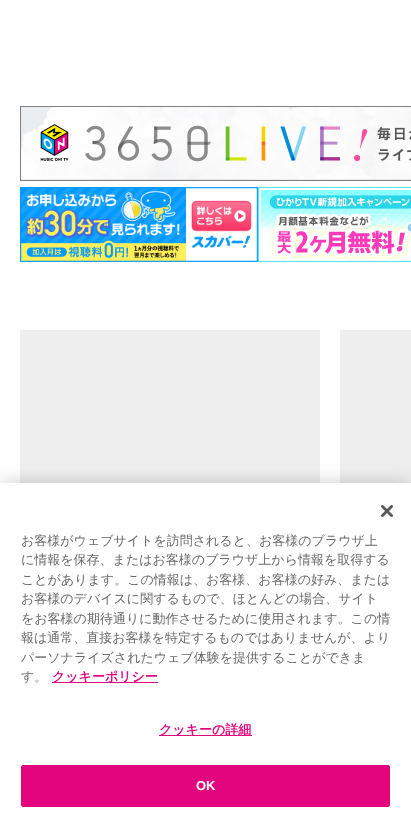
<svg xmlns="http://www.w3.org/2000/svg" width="411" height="823">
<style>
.a{font:500 13px WenQuanYi Zen Hei;fill:#696969}
.b{font:bold 13px WenQuanYi Zen Hei;fill:#e3057e}
.c{font:bold 13px Liberation Sans;fill:#fff}
</style>
<rect width="100%" height="100%" fill="#fff"/>
<image href="1.png" x="20" y="106" width="391" height="75"/>
<image href="2.png" x="20" y="187" width="238" height="75"/>
<image href="3.png" x="258" y="187" width="153" height="75"/>
<path fill="#eee" d="M20 330h300v153H20z"/>
<path fill="#eee" d="M340 330h71v153H340z"/>
<path fill="#00000033" filter="blur(9px)" d="M0 483h411v340H0z"/>
<path fill="#fff" d="M0 483h411v340H0z"/>
<image href="4.png" x="381" y="505" width="12" height="12"/>
<path fill="#e3057e" d="M52 682h106v1H52z"/>
<path fill="#e3057e" d="M159 735h93v1H159z"/>
<rect fill="#e3057e" stroke="#e3057e" x="21.5" y="765.5" width="368" height="41" rx="1.5"/>
<text class="a" x="21" y="545">お客様がウェブサイトを訪問されると、お客様のブラウザ上</text>
<text class="a" x="21" y="564">に情報を保存、またはお客様のブラウザ上から情報を取得する</text>
<text class="a" x="21" y="584">ことがあります。この情報は、お客様、お客様の好み、または</text>
<text class="a" x="21" y="603">お客様のデバイスに関するもので、ほとんどの場合、サイト</text>
<text class="a" x="21" y="623">をお客様の期待通りに動作させるために使用されます。この情</text>
<text class="a" x="21" y="642">報は通常、直接お客様を特定するものではありませんが、より</text>
<text class="a" x="21" y="662">パーソナライズされたウェブ体験を提供することができま</text>
<text class="a" x="21" y="681">す。</text>
<text class="b" x="52" y="681">クッキーポリシー</text>
<text class="b" x="159" y="734">クッキーの詳細</text>
<text class="c" x="196" y="790">OK</text>
</svg>
